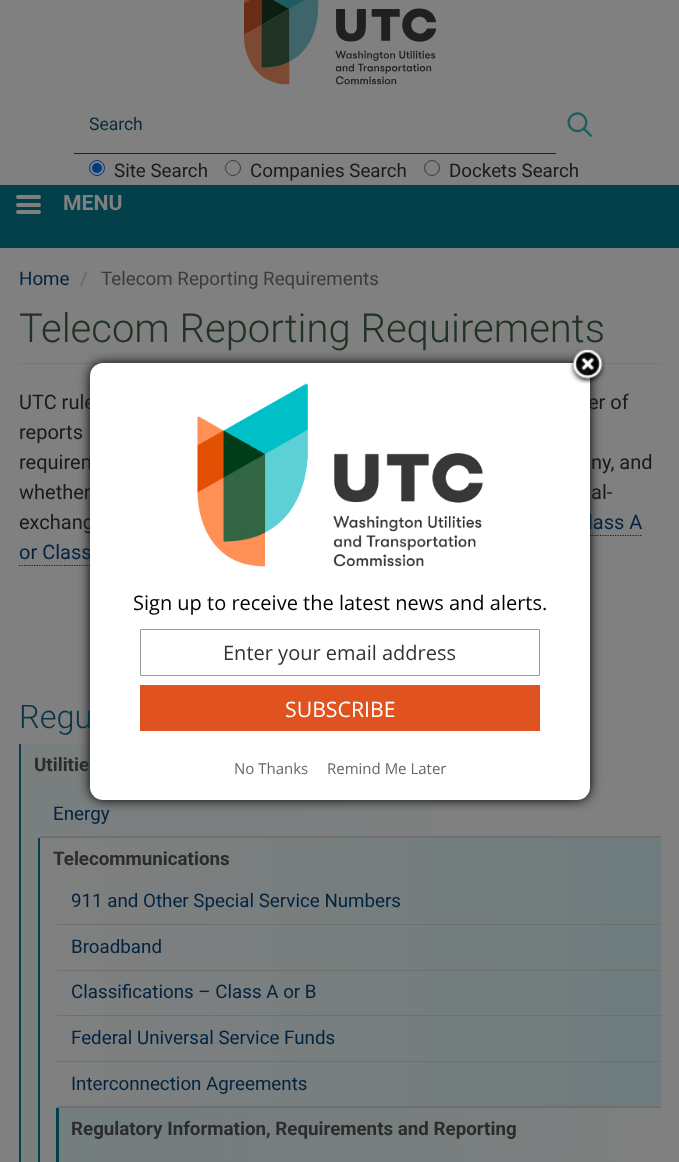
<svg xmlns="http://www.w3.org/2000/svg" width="679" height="1162">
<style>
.a{font:17.5px Roboto;fill:#082b37}
.b{font:18.75px Roboto;fill:#1a1a1a}
.c{font:bold 21.25px Roboto;fill:#808080}
.d{font:18.75px Roboto;fill:#02233f}
.e{font:18.75px Roboto;fill:#666}
.f{font:18.75px Roboto;fill:#3b3b3b}
.g{font:300 40px Roboto;fill:#203224}
.h{font:20px Roboto;fill:#1a1a1a}
.i{font:20px Roboto;fill:#02233f}
.j{font:300 32.5px Roboto;fill:#083647}
.k{font:bold 18.75px Roboto;fill:#2c2c2c}
.l{font:20px Open Sans;fill:#000}
.m{font:20px Open Sans;fill:#333}
.n{font:21.25px Open Sans;fill:#fff}
.o{font:15px Open Sans;fill:#666}
</style>
<defs>
<linearGradient id="g1" gradientUnits="userSpaceOnUse" x1="21" y1="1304" x2="661" y2="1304"><stop offset="0" stop-color="#797e7f"/><stop offset="1" stop-color="#808080"/></linearGradient>
<linearGradient id="g2" gradientUnits="userSpaceOnUse" x1="40" y1="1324" x2="661" y2="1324"><stop offset="0" stop-color="#808080"/><stop offset="1" stop-color="#6e7c7d"/></linearGradient>
<linearGradient id="g3" gradientUnits="userSpaceOnUse" x1="59" y1="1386" x2="661" y2="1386"><stop offset="0" stop-color="#6e7c7d" stop-opacity="0.6"/><stop offset="1" stop-color="#808080"/></linearGradient>
</defs>
<rect width="100%" height="100%" fill="#808080"/>
<image href="1.png" x="244" y="0" width="192" height="85"/>
<path fill="#082b37" d="M74 153h482v1H74z"/>
<image href="2.png" x="567" y="112" width="25" height="25"/>
<circle fill="none" stroke="#003b80" cx="97" cy="168" r="7.5"/>
<circle fill="#003b80" cx="97" cy="168" r="5"/>
<circle fill="none" stroke="#3b3b3b" cx="233" cy="168" r="7.5"/>
<circle fill="none" stroke="#3b3b3b" cx="432" cy="168" r="7.5"/>
<path fill="#034049" d="M0 185h679v63H0z"/>
<rect fill="#808080" x="16" y="195" width="25" height="4" rx="2"/>
<rect fill="#808080" x="16" y="203" width="25" height="4" rx="2"/>
<rect fill="#808080" x="16" y="210" width="25" height="4" rx="2"/>
<path fill="#777" d="M19 363h642v1H19z"/>
<path fill="none" stroke="#02233f" stroke-width="1.2" stroke-dasharray="1.25 1.25" d="M575 535.5h67.5"/>
<path fill="none" stroke="#02233f" stroke-width="1.2" stroke-dasharray="1.25 1.25" d="M19 565.5h90"/>
<path fill="url(#g1)" d="M21 744h411v418H21z"/>
<path fill="#034049" d="M19 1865v-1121h2v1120z"/>
<path fill="#6f6f6f" d="M661 838h-623l2-2h621z"/>
<path fill="url(#g2)" d="M40 838h621v324H40z"/>
<path fill="#034049" d="M38 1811v-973h2v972z"/>
<path fill="#6f6f6f" d="M661 925h-605l3-1h602z"/>
<path fill="#6f6f6f" d="M661 971h-605l3-1h602z"/>
<path fill="#6f6f6f" d="M661 1016h-605l3-1h602z"/>
<path fill="#6f6f6f" d="M661 1062h-605l3-1h602z"/>
<path fill="#6f6f6f" d="M661 1108h-605l3-2h602z"/>
<path fill="url(#g3)" d="M59 1108h602v54H59z"/>
<path fill="#034049" d="M56 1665v-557h3v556z"/>
<rect fill="#000" filter="blur(6px)" x="90" y="363" width="500" height="437" rx="13"/>
<text class="a" x="89" y="130">Search</text>
<text class="b" x="114" y="177">Site Search</text>
<text class="b" x="250" y="177">Companies Search</text>
<text class="b" x="449" y="177">Dockets Search</text>
<text class="c" x="63" y="210">MENU</text>
<text class="d" x="19" y="285">Home</text>
<text class="e" x="80" y="285">/</text>
<text class="f" x="101" y="285">Telecom Reporting Requirements</text>
<text class="g" x="19" y="342">Telecom Reporting Requirements</text>
<text class="h" x="19" y="409">UTC rule</text>
<text class="h" x="588" y="409">er of</text>
<text class="h" x="19" y="439">reports</text>
<text class="h" x="19" y="469">requirem</text>
<text class="h" x="591" y="469">ny, and</text>
<text class="h" x="19" y="499">whether</text>
<text class="h" x="591" y="499">al-</text>
<text class="h" x="19" y="529">exchang</text>
<text class="i" x="588" y="529">lass A</text>
<text class="i" x="19" y="559">or Class</text>
<text class="j" x="19" y="728">Regu</text>
<text class="k" x="34" y="771">Utilitie</text>
<text class="d" x="53" y="820">Energy</text>
<text class="k" x="53" y="865">Telecommunications</text>
<text class="d" x="71" y="907">911 and Other Special Service Numbers</text>
<text class="d" x="71" y="953">Broadband</text>
<text class="d" x="71" y="998">Classifications – Class A or B</text>
<text class="d" x="71" y="1044">Federal Universal Service Funds</text>
<text class="d" x="71" y="1090">Interconnection Agreements</text>
<text class="k" x="71" y="1135">Regulatory Information, Requirements and Reporting</text>
<rect fill="#fff" x="90" y="363" width="500" height="437" rx="13"/>
<image href="3.png" x="569" y="349" width="37" height="35"/>
<image href="4.png" x="197" y="383" width="287" height="184"/>
<text class="l" x="133" y="610">Sign up to receive the latest news and alerts.</text>
<path fill="none" stroke="#999" d="M140.5 629.5h399v46H140.5z"/>
<text class="m" x="223" y="660">Enter your email address</text>
<path fill="#e0521f" d="M140 685h400v46H140z"/>
<text class="n" x="285" y="717">SUBSCRIBE</text>
<text class="o" x="234" y="774">No Thanks</text>
<text class="o" x="327" y="774">Remind Me Later</text>
</svg>
